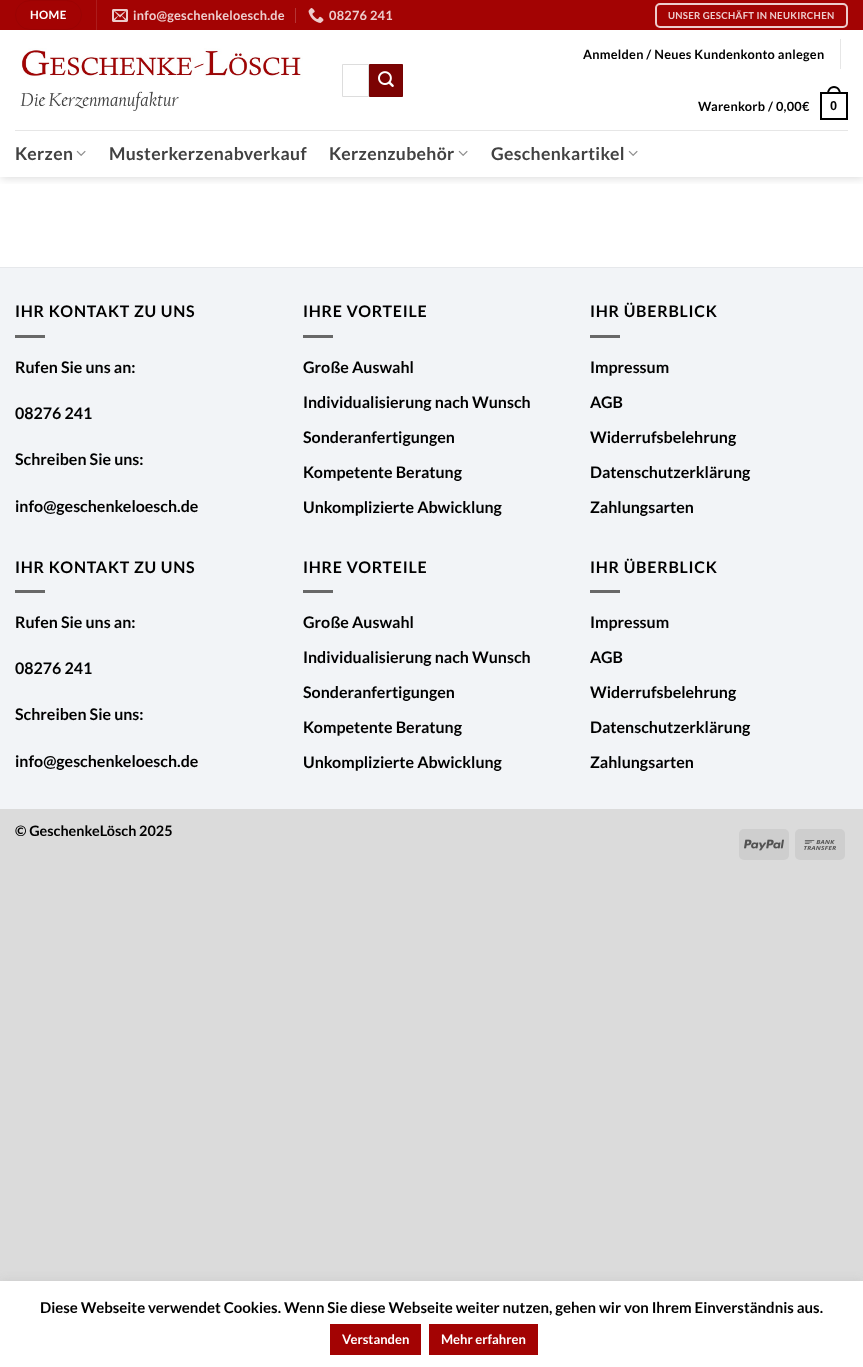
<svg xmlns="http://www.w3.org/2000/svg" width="863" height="1367">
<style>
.a{font:bold 11.5px Lato;letter-spacing:0.35px;fill:#fff}
.b{font:bold 12.75px Lato;letter-spacing:0.25px;fill:#edcdcd}
.c{font:bold 9.6px Lato;letter-spacing:0.3px;fill:#edcdcd}
.d{font:bold 12.75px Lato;letter-spacing:0.25px;fill:#000}
.e{font:bold 12.75px Liberation Sans;letter-spacing:0.25px;fill:#000}
.f{font:bold 17.6px Lato;letter-spacing:0.35px;fill:#424242}
.g{font:bold 16px Lato;letter-spacing:0.75px;fill:#000}
.h{font:bold 16px Lato;fill:#000}
.i{font:bold 14.4px Lato;fill:#000}
.j{font:bold 15px Lato;fill:#000}
.k{font:bold 13px Lato;fill:#fff}
</style>
<defs>
<clipPath id="clip1"><path d="M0 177h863v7H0z"/></clipPath>
</defs>
<rect width="100%" height="100%" fill="#dbdbdb"/>
<path fill="#fff" d="M0 30h863v237H0z"/>
<g clip-path="url(#clip1)">
<path fill="#00000026" filter="blur(5px)" d="M1 1h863v177H1z"/>
</g>
<path fill="#a30303" d="M0 0h863v30H0z"/>
<rect fill="none" stroke="#9b0303" x="15.5" y="0.5" width="66" height="29" rx="14.5"/>
<path fill="#ac1c1c" d="M96 0h1v30H96z"/>
<image href="1.png" x="112" y="9" width="16" height="13"/>
<path fill="#b53535" d="M295 8h1v15H295z"/>
<image href="2.png" x="308" y="8" width="16" height="15"/>
<rect fill="none" stroke="#edcdcd" stroke-width="2" x="656" y="4" width="191" height="23" rx="4"/>
<image href="3.png" x="20" y="48" width="283" height="63"/>
<path fill="none" stroke="#ddd" d="M342.5 64.5h26v32H342.5z"/>
<path fill="#7c0303" stroke="#760303" d="M369.5 64.5h33v32H369.5z"/>
<image href="4.png" x="378" y="71" width="16" height="16"/>
<path fill="#e6e6e6" d="M840 39h1v30H840z"/>
<path fill="none" stroke="#000" stroke-width="2" d="M821 93h26v26H821z"/>
<path fill="#000" fill-rule="evenodd" d="M834 86c4.5 0 7 4 7 8h-14c0-4 2.5-8 7-8zm0 2c3.5 0 5 3 5 6h-10c0-3 1.5-6 5-6z"/>
<path fill="#e6e6e6" d="M15 130h833v1H15z"/>
<image href="5.png" x="76" y="150" width="10" height="6"/>
<image href="5.png" x="458" y="150" width="10" height="6"/>
<image href="5.png" x="628" y="150" width="10" height="6"/>
<path fill="#f2f4f7" d="M0 268h863v541H0z"/>
<path fill="#e6e8eb" d="M0 267h863v1H0z"/>
<path fill="#686868" d="M15 335h30v3H15z"/>
<path fill="#686868" d="M303 335h30v3H303z"/>
<path fill="#686868" d="M590 335h30v3H590z"/>
<path fill="#686868" d="M15 590h30v3H15z"/>
<path fill="#686868" d="M303 590h30v3H303z"/>
<path fill="#686868" d="M590 590h30v3H590z"/>
<rect fill="#cecece" x="739" y="829" width="50" height="31" rx="5"/>
<image href="6.png" x="744" y="839" width="40" height="12"/>
<rect fill="#cecece" x="795" y="829" width="50" height="31" rx="5"/>
<image href="7.png" x="804" y="840" width="32" height="10"/>
<path fill="#acabab4d" filter="blur(5px)" d="M0 1280h863v86H0z"/>
<path fill="#fff" d="M0 1281h863v86H0z"/>
<path fill="#a30303" d="M330 1324h91v31H330z"/>
<path fill="#a30303" d="M429 1324h109v31H429z"/>
<text class="a" x="30" y="19">HOME</text>
<text class="b" x="133" y="20">info@geschenkeloesch.de</text>
<text class="b" x="329" y="20">08276 241</text>
<text class="c" x="668" y="19">UNSER GESCHÄFT IN NEUKIRCHEN</text>
<text class="d" x="583" y="59">Anmelden / Neues Kundenkonto anlegen</text>
<text class="d" x="698" y="111">Warenkorb / 0,00€</text>
<text class="e" x="830" y="110">0</text>
<text class="f" x="15" y="160">Kerzen</text>
<text class="f" x="109" y="160">Musterkerzenabverkauf</text>
<text class="f" x="329" y="160">Kerzenzubehör</text>
<text class="f" x="491" y="160">Geschenkartikel</text>
<text class="g" x="15" y="317">IHR KONTAKT ZU UNS</text>
<text class="h" x="15" y="373">Rufen Sie uns an:</text>
<text class="h" x="15" y="419">08276 241</text>
<text class="h" x="15" y="465">Schreiben Sie uns:</text>
<text class="h" x="15" y="512">info@geschenkeloesch.de</text>
<text class="g" x="303" y="317">IHRE VORTEILE</text>
<text class="h" x="303" y="373">Große Auswahl</text>
<text class="h" x="303" y="408">Individualisierung nach Wunsch</text>
<text class="h" x="303" y="443">Sonderanfertigungen</text>
<text class="h" x="303" y="478">Kompetente Beratung</text>
<text class="h" x="303" y="513">Unkomplizierte Abwicklung</text>
<text class="g" x="590" y="317">IHR ÜBERBLICK</text>
<text class="h" x="590" y="373">Impressum</text>
<text class="h" x="590" y="408">AGB</text>
<text class="h" x="590" y="443">Widerrufsbelehrung</text>
<text class="h" x="590" y="478">Datenschutzerklärung</text>
<text class="h" x="590" y="513">Zahlungsarten</text>
<text class="g" x="15" y="573">IHR KONTAKT ZU UNS</text>
<text class="h" x="15" y="628">Rufen Sie uns an:</text>
<text class="h" x="15" y="674">08276 241</text>
<text class="h" x="15" y="720">Schreiben Sie uns:</text>
<text class="h" x="15" y="767">info@geschenkeloesch.de</text>
<text class="g" x="303" y="573">IHRE VORTEILE</text>
<text class="h" x="303" y="628">Große Auswahl</text>
<text class="h" x="303" y="663">Individualisierung nach Wunsch</text>
<text class="h" x="303" y="698">Sonderanfertigungen</text>
<text class="h" x="303" y="733">Kompetente Beratung</text>
<text class="h" x="303" y="768">Unkomplizierte Abwicklung</text>
<text class="g" x="590" y="573">IHR ÜBERBLICK</text>
<text class="h" x="590" y="628">Impressum</text>
<text class="h" x="590" y="663">AGB</text>
<text class="h" x="590" y="698">Widerrufsbelehrung</text>
<text class="h" x="590" y="733">Datenschutzerklärung</text>
<text class="h" x="590" y="768">Zahlungsarten</text>
<text class="i" x="15" y="836">© GeschenkeLösch 2025</text>
<text class="j" x="40" y="1313">Diese Webseite verwendet Cookies. Wenn Sie diese Webseite weiter nutzen, gehen wir von Ihrem Einverständnis aus.</text>
<text class="k" x="342" y="1344">Verstanden</text>
<text class="k" x="441" y="1344">Mehr erfahren</text>
</svg>
